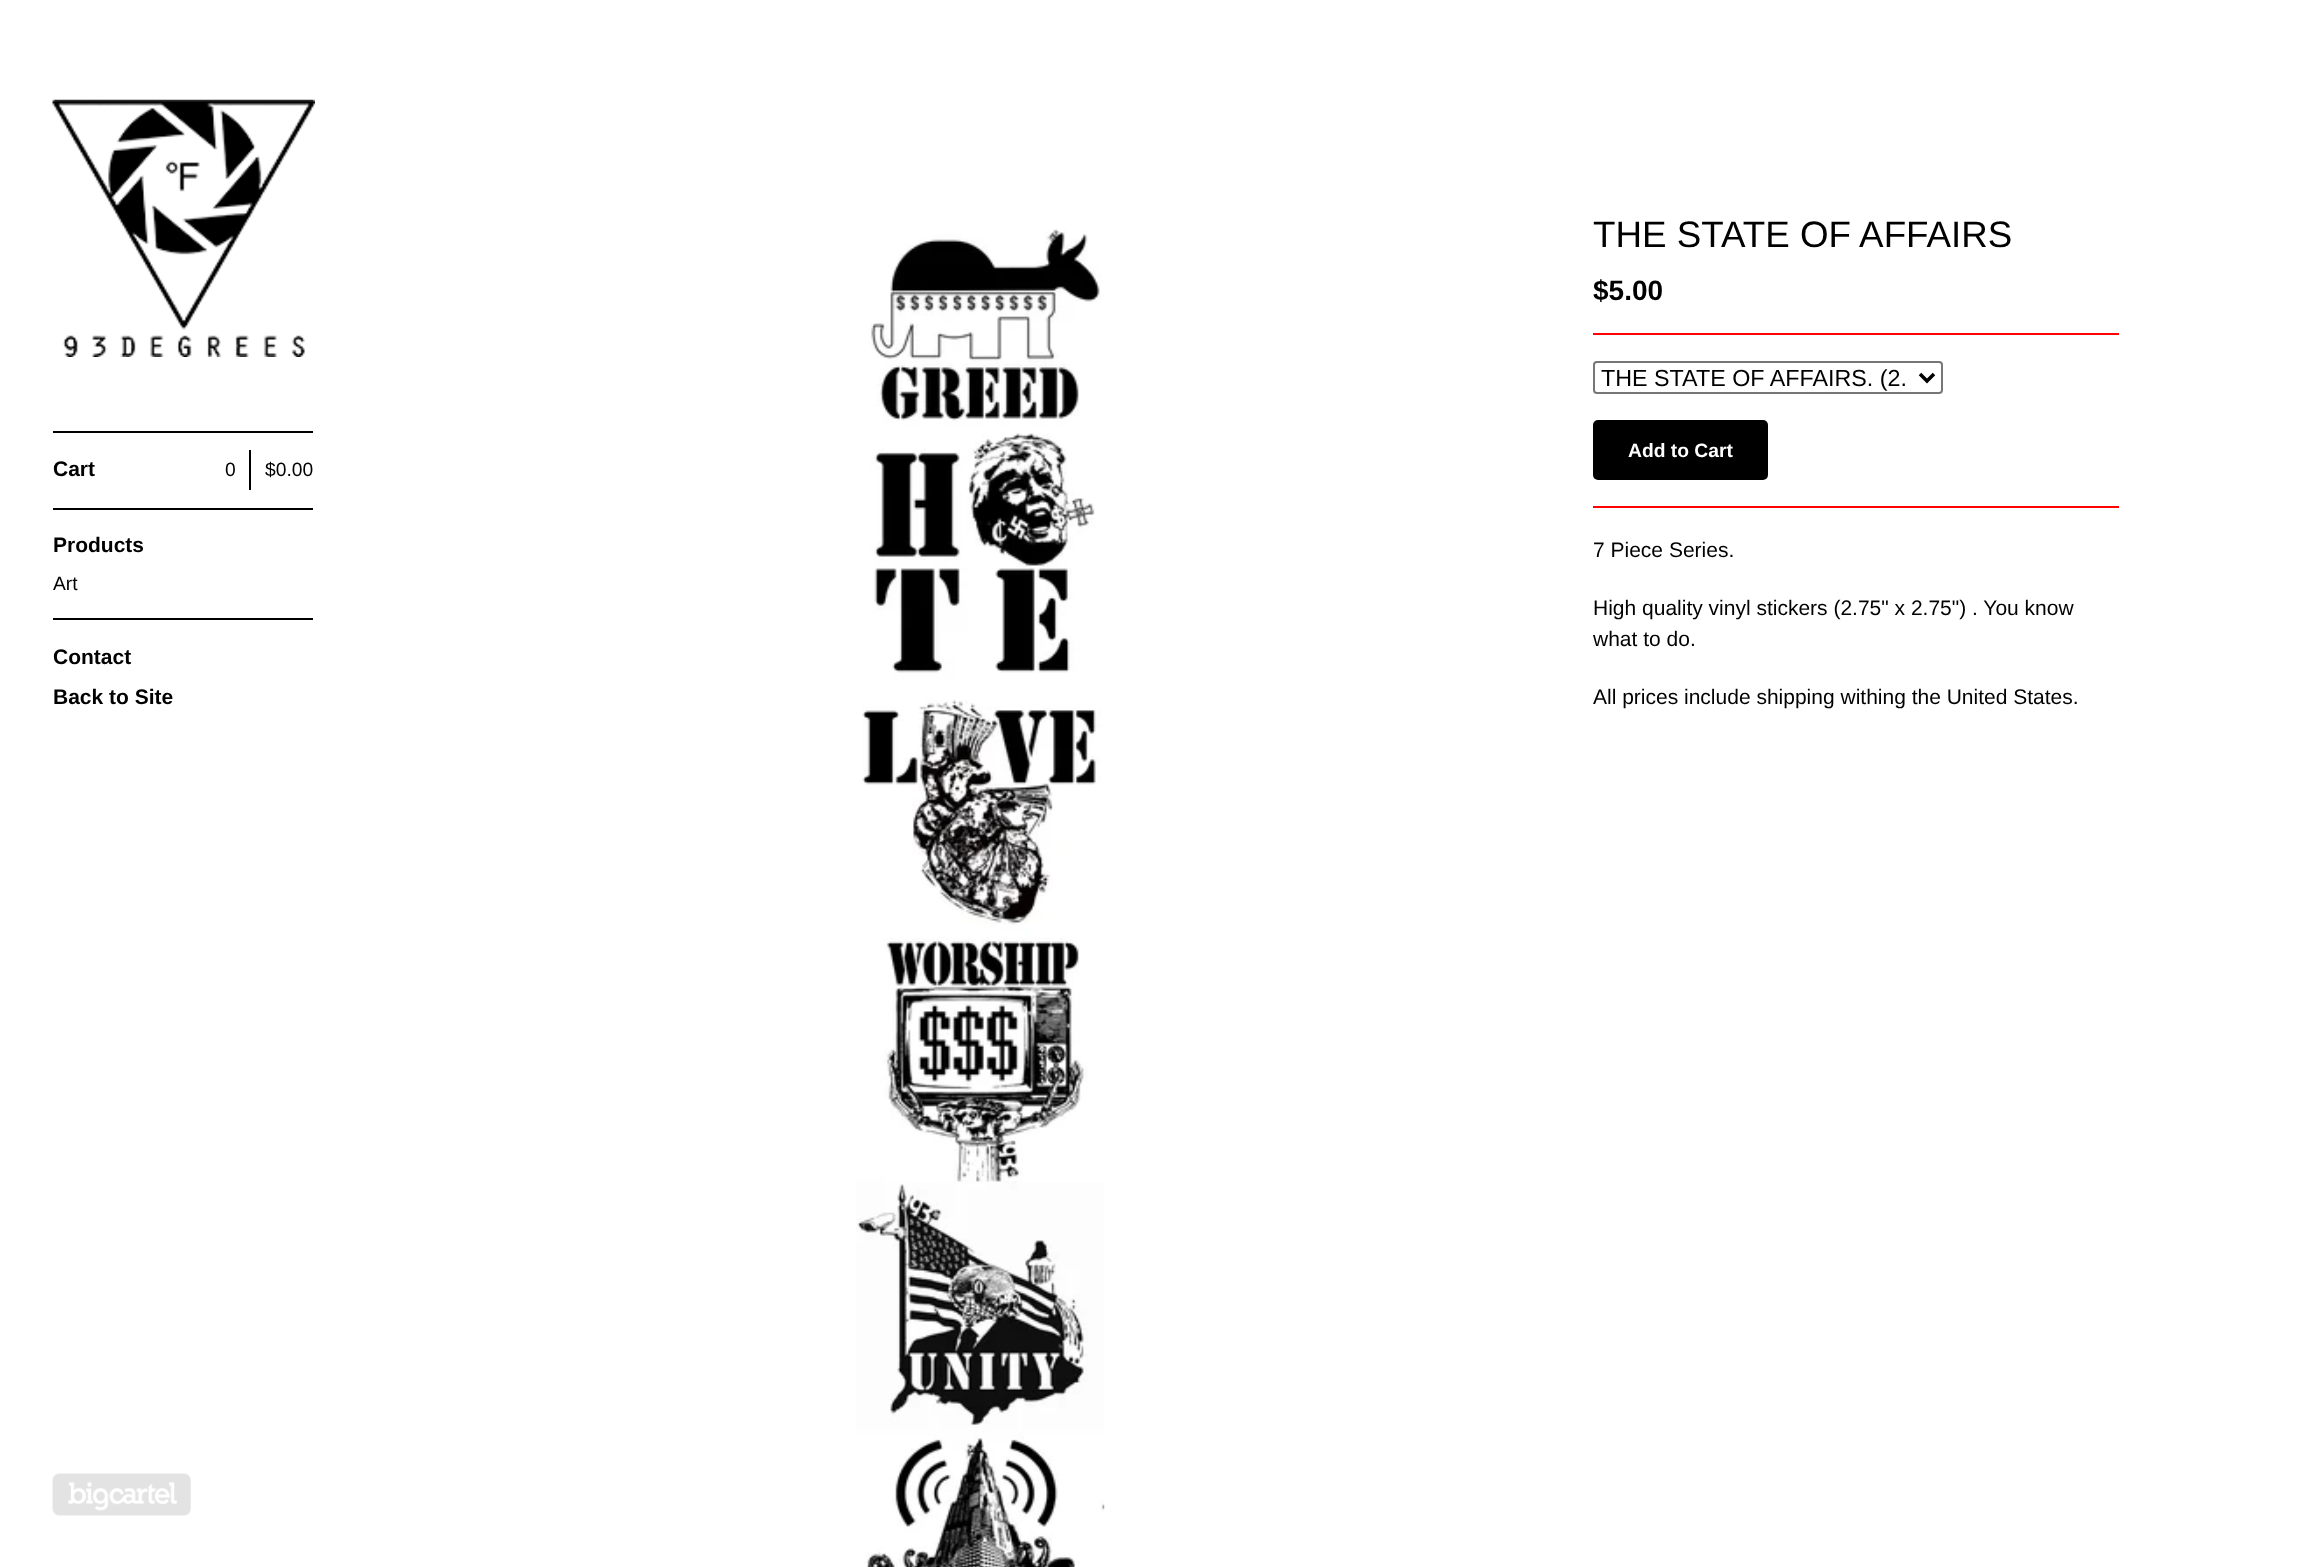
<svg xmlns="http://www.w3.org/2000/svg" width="2315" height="1567">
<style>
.a{font:bold 21px Liberation Sans;fill:#000}
.b{font:19.25px Liberation Sans;fill:#000}
.c{font:36.75px Liberation Sans;fill:#000}
.d{font:bold 28px Liberation Sans;fill:#000}
.e{font:23.3px Liberation Sans;fill:#000}
.f{font:bold 19.25px Liberation Sans;fill:#fff}
.g{font:21px Liberation Sans;fill:#000}
</style>
<rect width="100%" height="100%" fill="#fff"/>
<image href="1.png" x="52" y="99" width="263" height="258"/>
<path fill="#000" d="M53 431h260v2H53z"/>
<path fill="#000" d="M249 450h2v40H249z"/>
<path fill="#000" d="M53 508h260v2H53z"/>
<path fill="#000" d="M53 618h260v2H53z"/>
<image href="2.png" x="52" y="1473" width="139" height="43"/>
<image href="3.png" x="856" y="229" width="249" height="1338"/>
<path fill="#ff0303" d="M1593 333h526v2H1593z"/>
<rect fill="none" stroke="#767676" stroke-width="2" x="1594" y="362" width="348" height="31" rx="3"/>
<path fill="none" stroke="#000" stroke-width="3.5" d="M1920 374l7 7l7-7"/>
<rect fill="#000" x="1593" y="420" width="175" height="60" rx="5"/>
<path fill="#ff0303" d="M1593 506h526v2H1593z"/>
<text class="a" x="53" y="476">Cart</text>
<text class="b" x="225" y="476">0</text>
<text class="b" x="265" y="476">$0.00</text>
<text class="a" x="53" y="552">Products</text>
<text class="b" x="53" y="590">Art</text>
<text class="a" x="53" y="664">Contact</text>
<text class="a" x="53" y="704">Back to Site</text>
<text class="c" x="1593" y="247">THE STATE OF AFFAIRS</text>
<text class="d" x="1593" y="300">$5.00</text>
<text class="e" x="1601" y="386">THE STATE OF AFFAIRS. (2.</text>
<text class="f" x="1628" y="457">Add to Cart</text>
<text class="g" x="1593" y="557">7 Piece Series.</text>
<text class="g" x="1593" y="615">High quality vinyl stickers (2.75" x 2.75") . You know</text>
<text class="g" x="1593" y="646">what to do.</text>
<text class="g" x="1593" y="704">All prices include shipping withing the United States.</text>
</svg>
